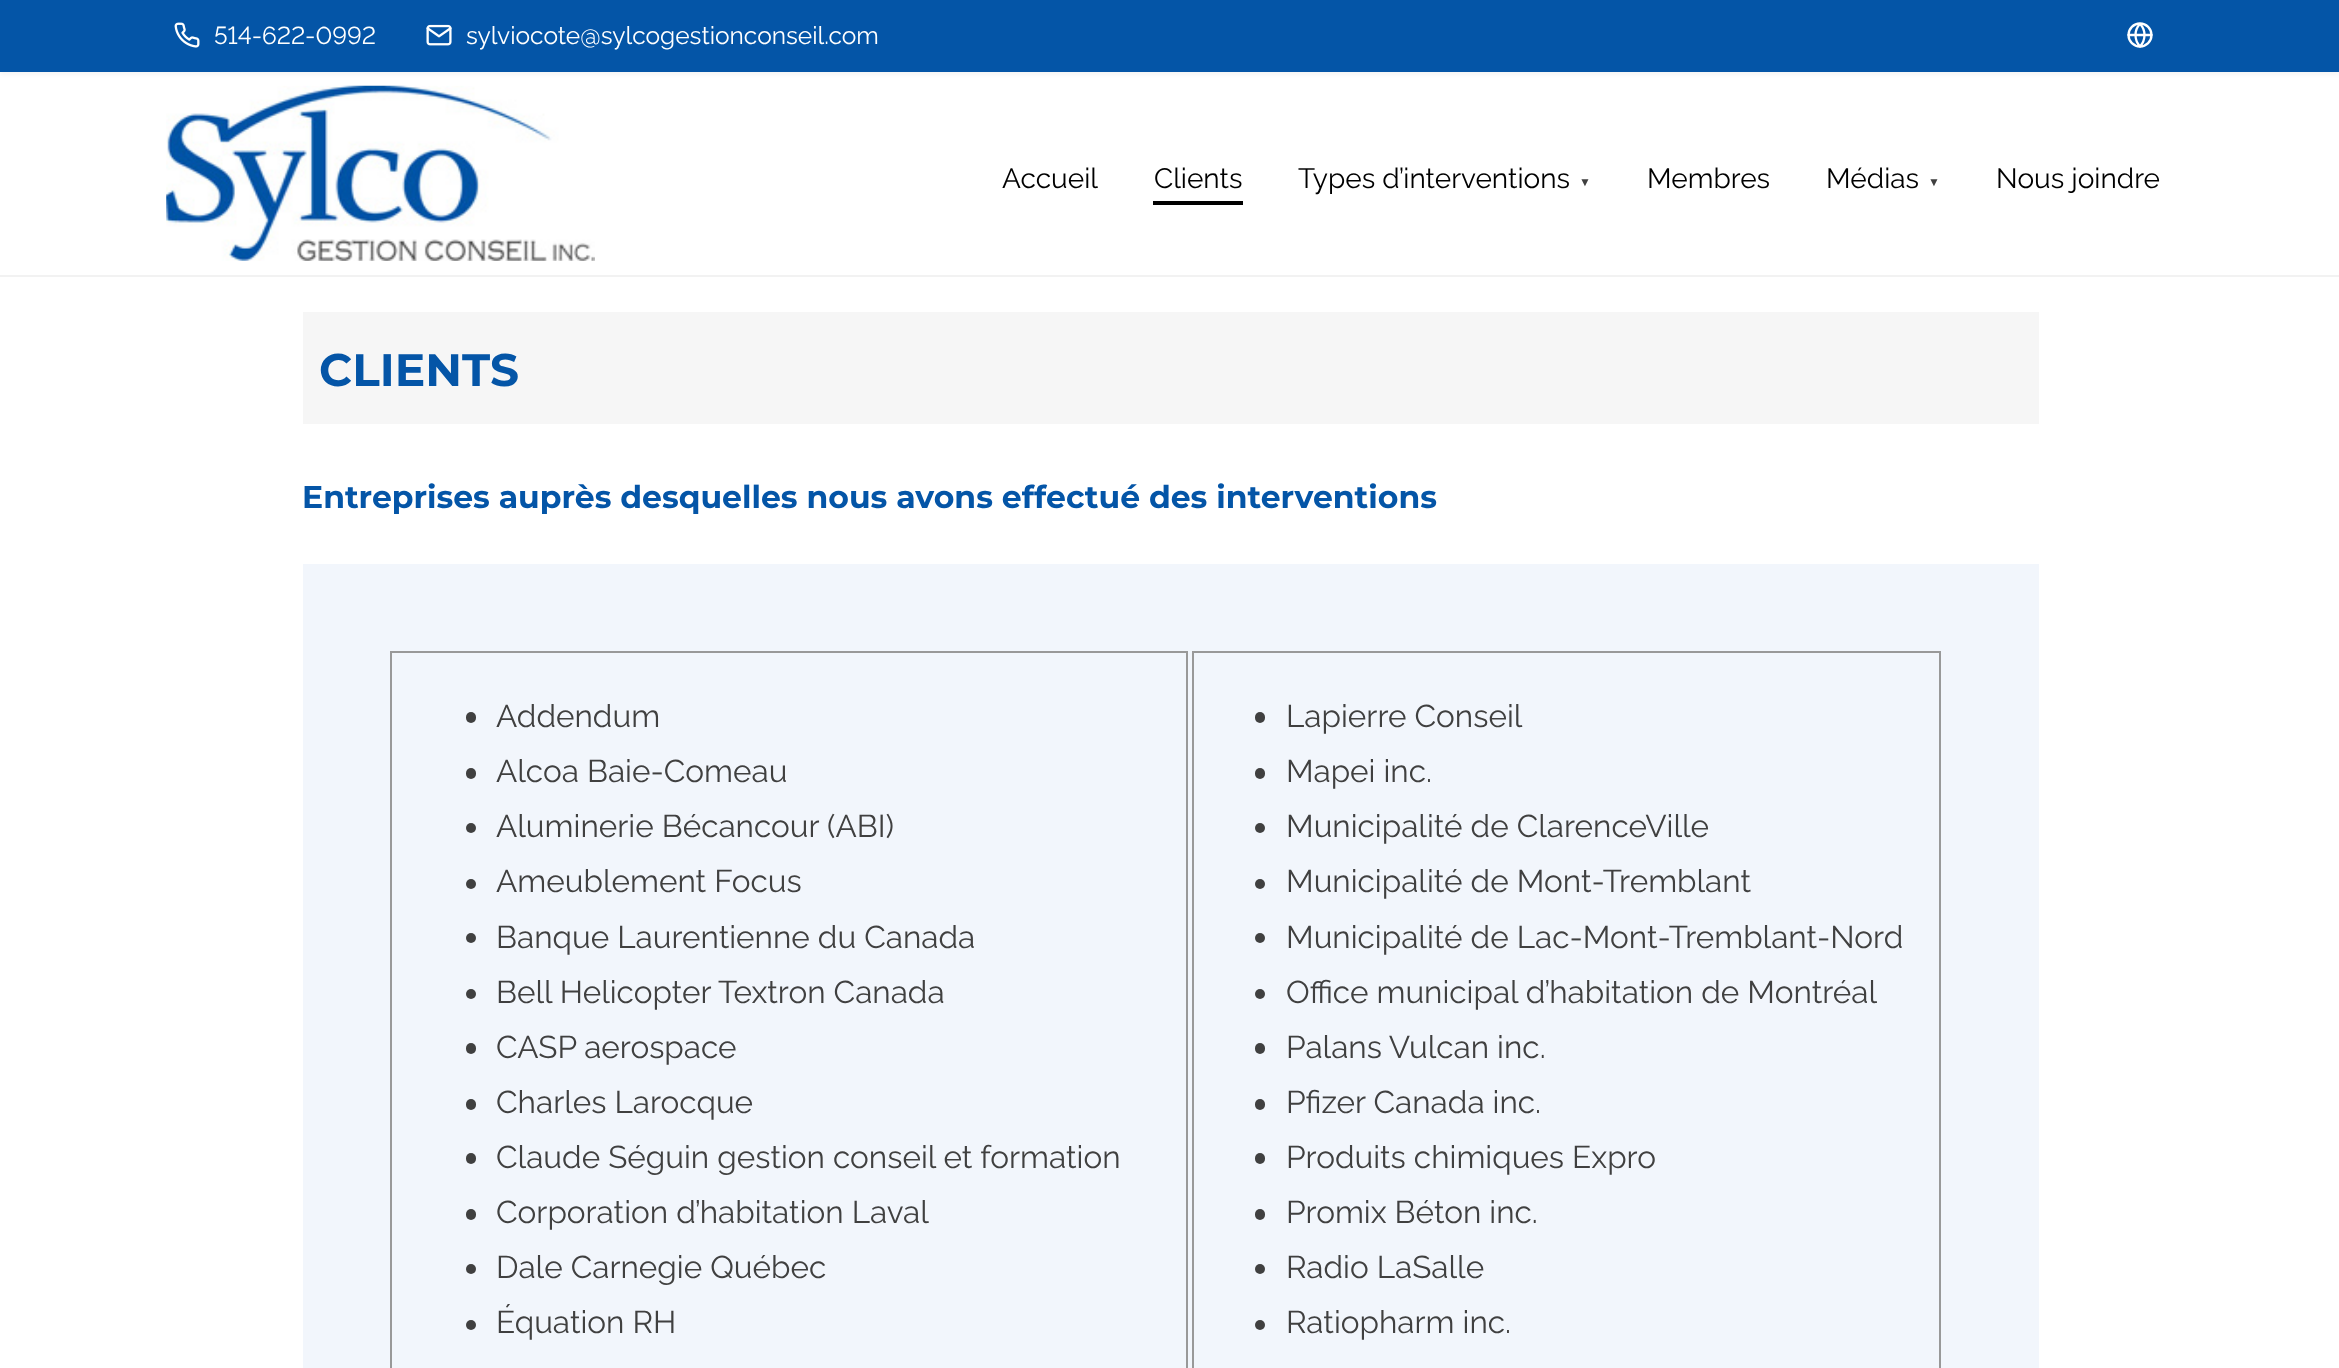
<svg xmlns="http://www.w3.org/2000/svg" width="2339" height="1368">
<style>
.a{font:24.5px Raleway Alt;fill:#fff}
.b{font:24.5px Raleway;fill:#fff}
.c{font:28px Raleway;fill:#000}
.d{font:12px Liberation Sans;fill:#404040}
.e{font:bold 45.5px Montserrat;fill:#0455a7}
.f{font:bold 31.5px Montserrat;fill:#0455a7}
.g{font:31.5px Raleway;fill:#404040}
</style>
<rect width="100%" height="100%" fill="#fff"/>
<path fill="#0000000d" filter="blur(2.5px)" d="M0 2h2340v72H0z"/>
<path fill="#0455a7" d="M0 0h2339v72H0z"/>
<image href="1.png" x="174" y="22" width="26" height="26"/>
<image href="2.png" x="426" y="24" width="26" height="22"/>
<circle fill="none" stroke="#fff" stroke-width="2.3" cx="2140" cy="35" r="11.5"/>
<path fill="none" stroke="#fff" stroke-width="2.3" stroke-linecap="round" stroke-linejoin="round" d="M2128.5 35h23m-11.5-11c6 6 6 16 0 22.5c-6-6.5-6-16.5 0-22.5z"/>
<path fill="#f2f2f2" d="M0 275h2339v2H0z"/>
<image href="3.png" x="166" y="85" width="429" height="176"/>
<path fill="#000" d="M1153 201h90v4H1153z"/>
<path fill="#f6f6f6" d="M303 312h1736v112H303z"/>
<path fill="#f2f6fc" d="M303 564h1736v804H303z"/>
<path fill="none" stroke="#999" stroke-width="2" d="M391 652h796v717H391z"/>
<rect fill="#404040" x="466" y="712" width="10" height="11" rx="5"/>
<rect fill="#404040" x="466" y="768" width="10" height="11" rx="5"/>
<circle fill="#404040" cx="471" cy="828" r="5"/>
<circle fill="#404040" cx="471" cy="884" r="5"/>
<circle fill="#404040" cx="471" cy="938" r="5"/>
<circle fill="#404040" cx="471" cy="994" r="5"/>
<rect fill="#404040" x="466" y="1043" width="10" height="11" rx="5"/>
<rect fill="#404040" x="466" y="1099" width="10" height="11" rx="5"/>
<rect fill="#404040" x="466" y="1153" width="10" height="11" rx="5"/>
<rect fill="#404040" x="466" y="1209" width="10" height="11" rx="5"/>
<circle fill="#404040" cx="471" cy="1269" r="5"/>
<circle fill="#404040" cx="471" cy="1325" r="5"/>
<path fill="none" stroke="#999" stroke-width="2" d="M1193 652h747v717H1193z"/>
<rect fill="#404040" x="1255" y="712" width="10" height="11" rx="5"/>
<rect fill="#404040" x="1255" y="768" width="10" height="11" rx="5"/>
<circle fill="#404040" cx="1260" cy="828" r="5"/>
<circle fill="#404040" cx="1260" cy="884" r="5"/>
<circle fill="#404040" cx="1260" cy="938" r="5"/>
<circle fill="#404040" cx="1260" cy="994" r="5"/>
<rect fill="#404040" x="1255" y="1043" width="10" height="11" rx="5"/>
<rect fill="#404040" x="1255" y="1099" width="10" height="11" rx="5"/>
<rect fill="#404040" x="1255" y="1153" width="10" height="11" rx="5"/>
<rect fill="#404040" x="1255" y="1209" width="10" height="11" rx="5"/>
<circle fill="#404040" cx="1260" cy="1269" r="5"/>
<circle fill="#404040" cx="1260" cy="1325" r="5"/>
<text class="a" x="214" y="44">514-622-0992</text>
<text class="b" x="466" y="44">sylviocote@sylcogestionconseil.com</text>
<text class="c" x="1002" y="188">Accueil</text>
<text class="c" x="1154" y="188">Clients</text>
<text class="c" x="1298" y="188">Types d’interventions</text>
<text class="d" x="1579" y="186">▼</text>
<text class="c" x="1647" y="188">Membres</text>
<text class="c" x="1826" y="188">Médias</text>
<text class="d" x="1928" y="186">▼</text>
<text class="c" x="1996" y="188">Nous joindre</text>
<text class="e" x="319" y="386">CLIENTS</text>
<text class="f" x="302" y="508">Entreprises auprès desquelles nous avons effectué des interventions</text>
<text class="g" x="496" y="727">Addendum</text>
<text class="g" x="496" y="782">Alcoa Baie-Comeau</text>
<text class="g" x="496" y="837">Aluminerie Bécancour (ABI)</text>
<text class="g" x="496" y="892">Ameublement Focus</text>
<text class="g" x="496" y="948">Banque Laurentienne du Canada</text>
<text class="g" x="496" y="1003">Bell Helicopter Textron Canada</text>
<text class="g" x="496" y="1058">CASP aerospace</text>
<text class="g" x="496" y="1113">Charles Larocque</text>
<text class="g" x="496" y="1168">Claude Séguin gestion conseil et formation</text>
<text class="g" x="496" y="1223">Corporation d’habitation Laval</text>
<text class="g" x="496" y="1278">Dale Carnegie Québec</text>
<text class="g" x="496" y="1333">Équation RH</text>
<text class="g" x="1286" y="727">Lapierre Conseil</text>
<text class="g" x="1286" y="782">Mapei inc.</text>
<text class="g" x="1286" y="837">Municipalité de ClarenceVille</text>
<text class="g" x="1286" y="892">Municipalité de Mont-Tremblant</text>
<text class="g" x="1286" y="948">Municipalité de Lac-Mont-Tremblant-Nord</text>
<text class="g" x="1286" y="1003">Office municipal d’habitation de Montréal</text>
<text class="g" x="1286" y="1058">Palans Vulcan inc.</text>
<text class="g" x="1286" y="1113">Pfizer Canada inc.</text>
<text class="g" x="1286" y="1168">Produits chimiques Expro</text>
<text class="g" x="1286" y="1223">Promix Béton inc.</text>
<text class="g" x="1286" y="1278">Radio LaSalle</text>
<text class="g" x="1286" y="1333">Ratiopharm inc.</text>
</svg>
